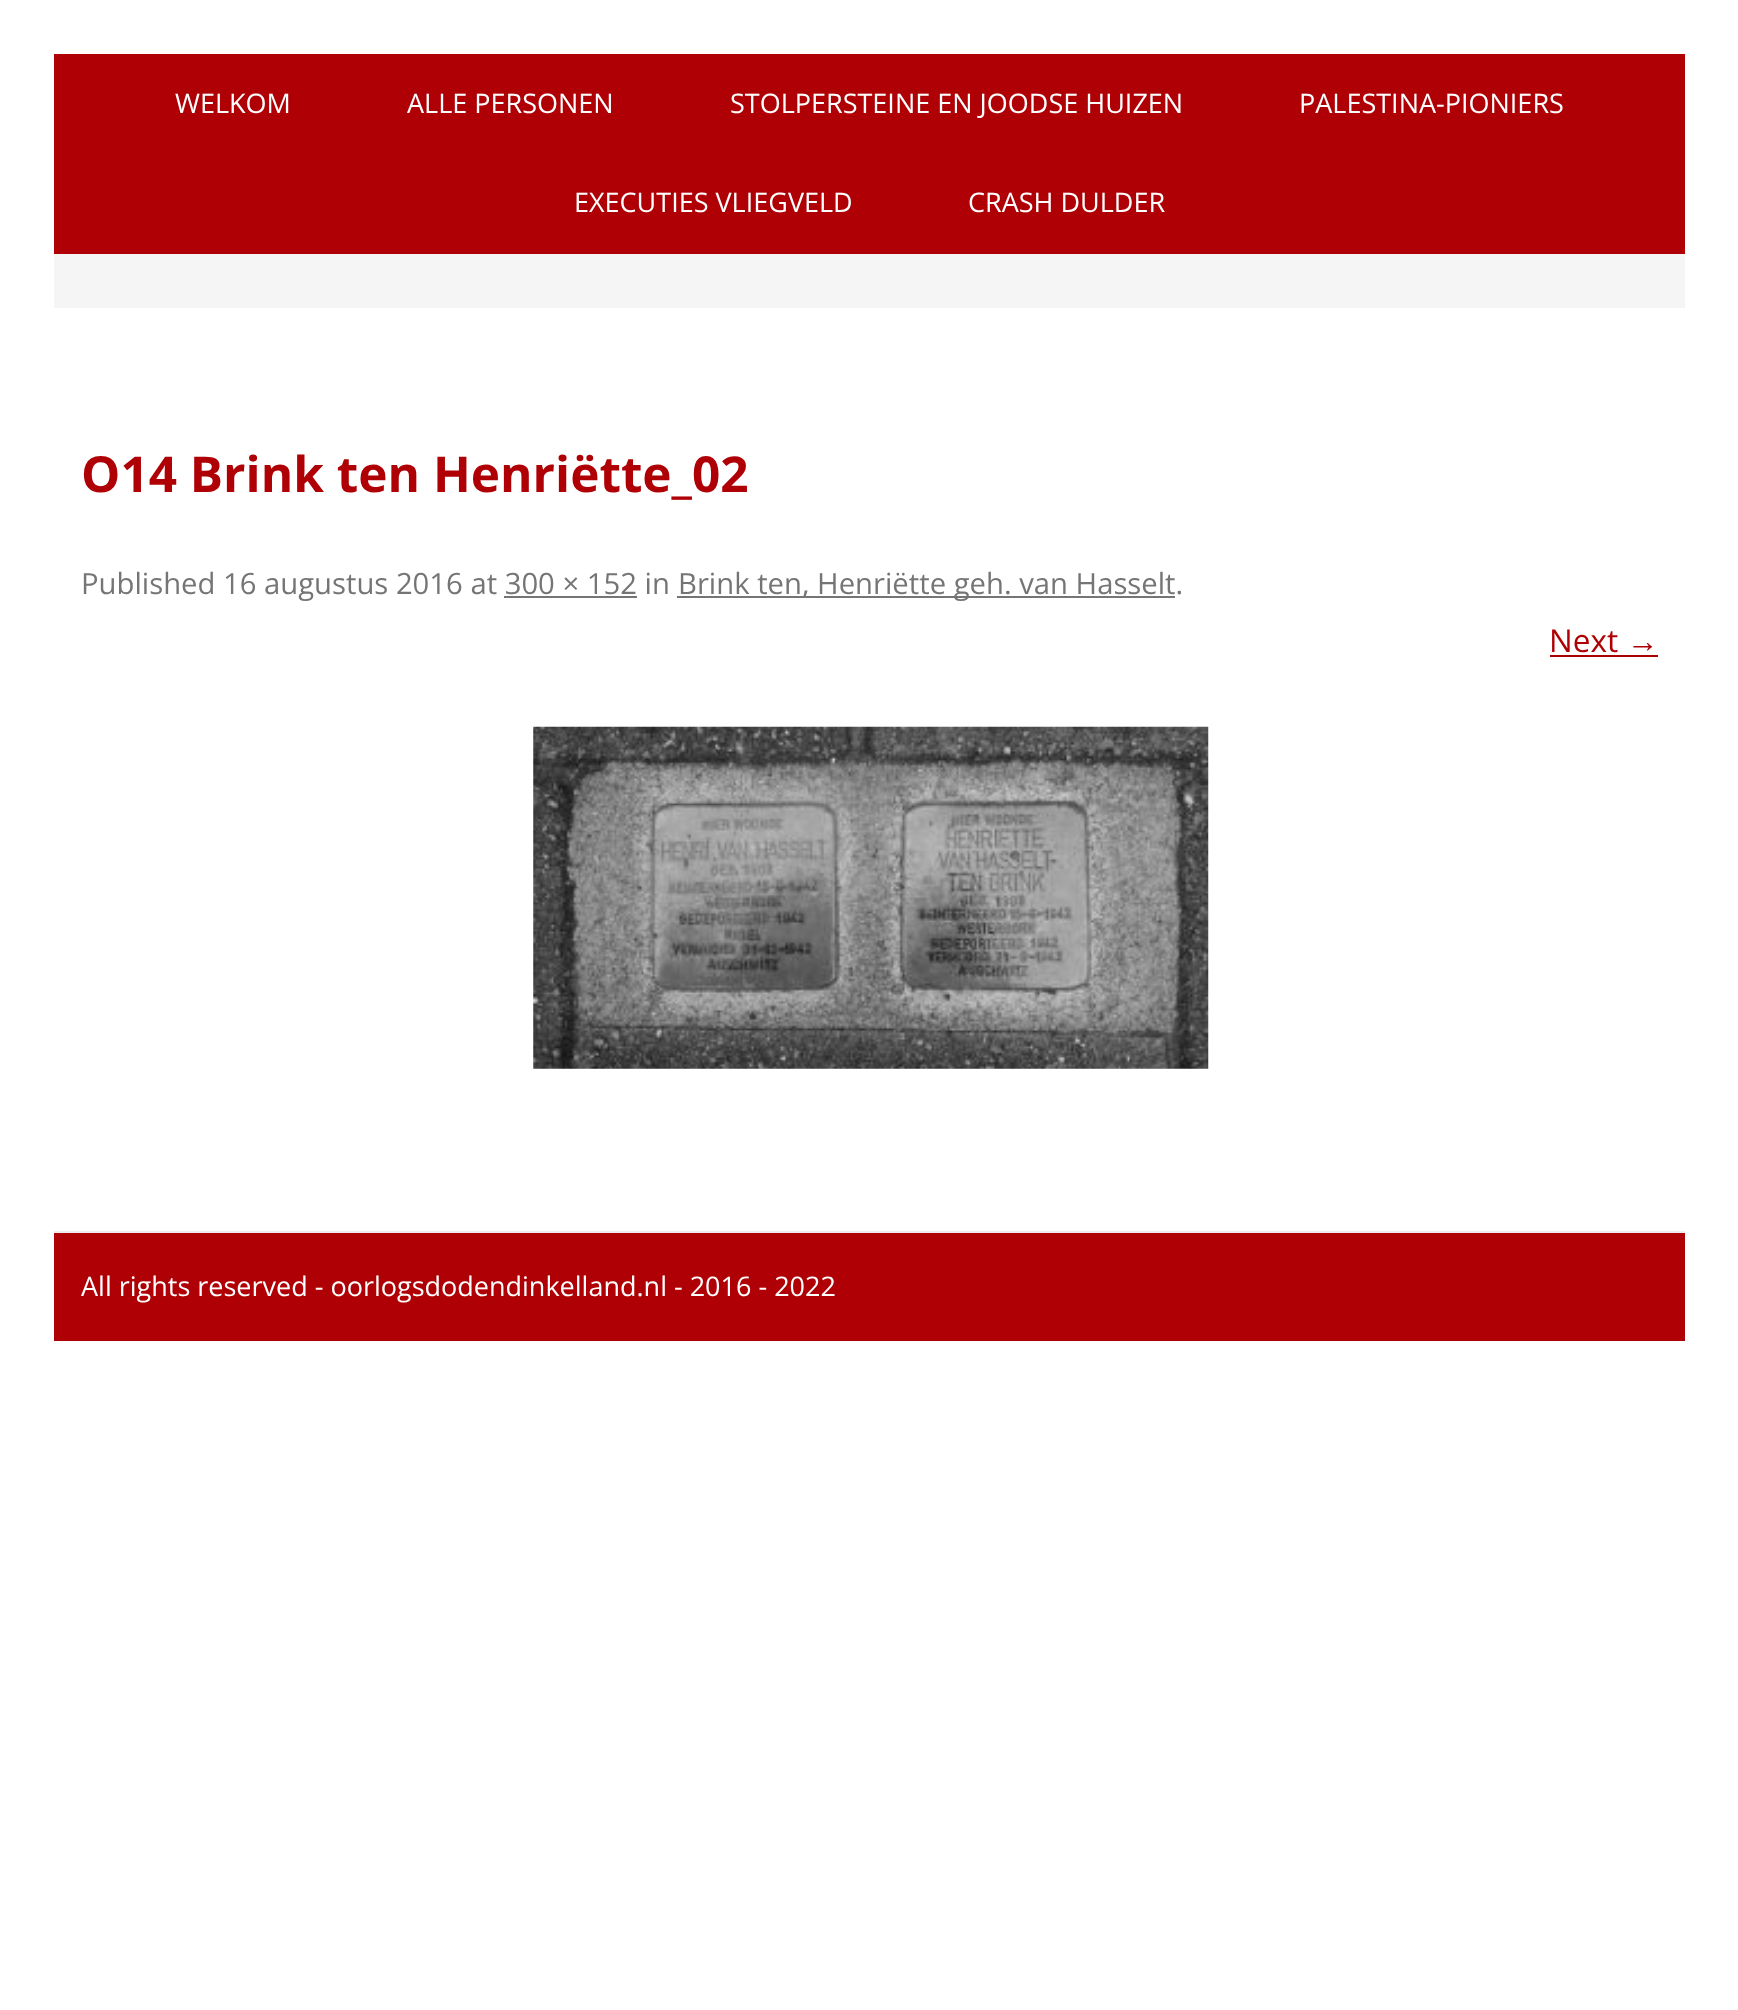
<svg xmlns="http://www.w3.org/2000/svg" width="1738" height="2010">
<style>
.a{font:27px Open Sans;fill:#fff}
.b{font:bold 49.5px Open Sans;fill:#af0105}
.c{font:29.25px Open Sans;fill:#757575}
.d{font:31.5px Open Sans;fill:#af0105}
.e{font:31.5px Liberation Sans;fill:#af0105}
</style>
<rect width="100%" height="100%" fill="#fff"/>
<path fill="#af0105" d="M54 54h1631v200H54z"/>
<path fill="#f5f5f5" d="M54 254h1631v54H54z"/>
<path fill="#757575" d="M677 596h498v2H677z"/>
<path fill="#757575" d="M504 596h133v2H504z"/>
<path fill="#a00" d="M1550 655h108v2H1550z"/>
<image href="1.png" x="533" y="726" width="676" height="343"/>
<path fill="#af0105" d="M54 1233h1631v108H54z"/>
<path fill="#ededed" d="M54 1231h1631v2H54z"/>
<text class="a" x="175" y="113">WELKOM</text>
<text class="a" x="407" y="113">ALLE PERSONEN</text>
<text class="a" x="730" y="113">STOLPERSTEINE EN JOODSE HUIZEN</text>
<text class="a" x="1299" y="113">PALESTINA-PIONIERS</text>
<text class="a" x="574" y="212">EXECUTIES VLIEGVELD</text>
<text class="a" x="968" y="212">CRASH DULDER</text>
<text class="b" x="81" y="492">O14 Brink ten Henriëtte_02</text>
<text class="c" x="81" y="594">Published 16 augustus 2016 at 300 × 152 in</text>
<text class="c" x="678" y="594">Brink ten, Henriëtte geh. van Hasselt.</text>
<text class="d" x="1549" y="652">Next</text>
<text class="e" x="1627" y="652">→</text>
<text class="a" x="81" y="1296">All rights reserved - oorlogsdodendinkelland.nl - 2016 - 2022</text>
</svg>
